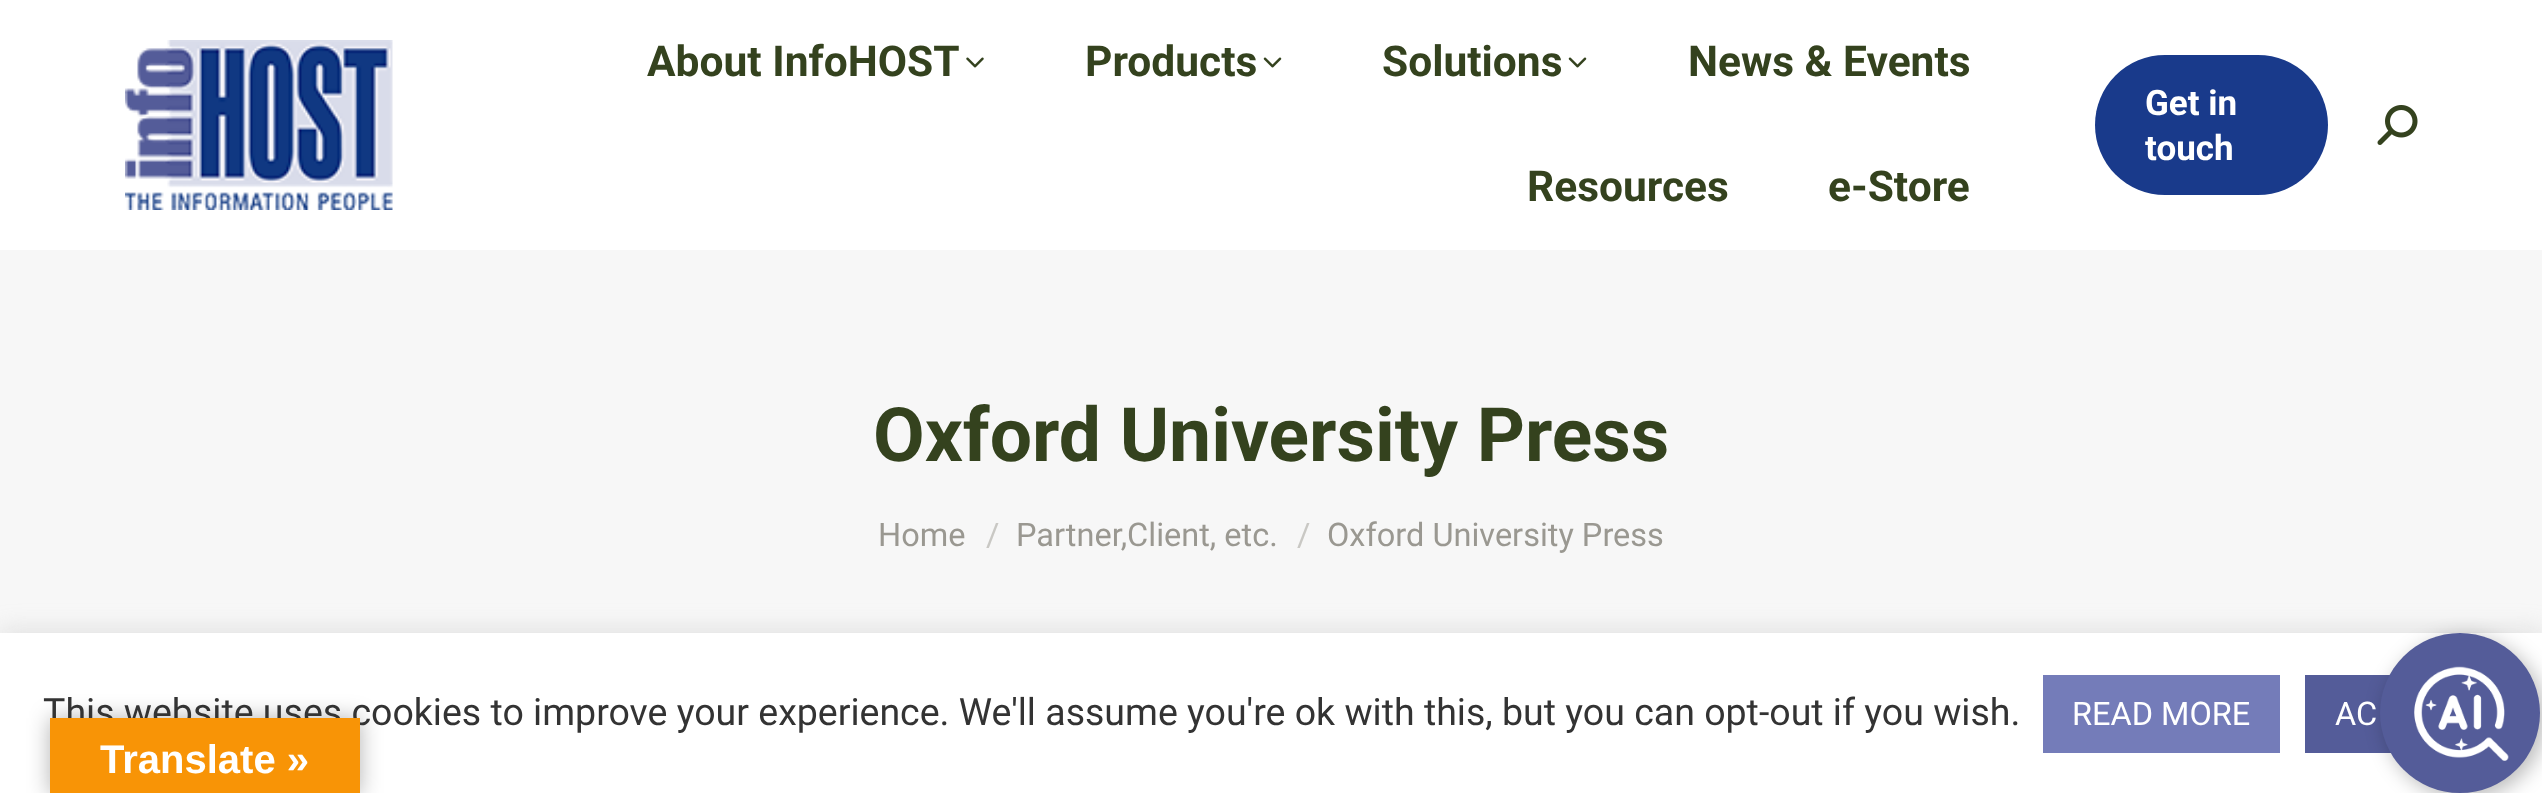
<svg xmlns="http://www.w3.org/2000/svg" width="2542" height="793">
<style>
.a{font:bold 42.5px Roboto;fill:#34421e}
.b{font:bold 35px Roboto;fill:#fff}
.c{font:bold 75px Roboto;fill:#34421e}
.d{font:32.5px Roboto;fill:#9a9891}
.e{font:32.5px Roboto;fill:#c9c8c4}
.f{font:37.5px Roboto;fill:#333}
.g{font:32.5px Roboto;fill:#fff}
.h{font:bold 40px Liberation Sans;fill:#fff}
</style>
<rect width="100%" height="100%" fill="#fff"/>
<image href="1.png" x="125" y="40" width="268" height="170"/>
<image href="2.png" x="966" y="57" width="18" height="11"/>
<image href="3.png" x="1263" y="57" width="19" height="11"/>
<image href="3.png" x="1568" y="57" width="19" height="11"/>
<rect fill="#193a8b" x="2095" y="55" width="233" height="140" rx="70"/>
<image href="4.png" x="2377" y="105" width="41" height="40"/>
<path fill="#f7f7f7" d="M0 250h2542v383H0z"/>
<path fill="#acabab4d" filter="blur(12.5px)" d="M0 630h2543v163H0z"/>
<path fill="#fff" d="M0 633h2542v160H0z"/>
<path fill="#747cb9" d="M2043 675h237v78H2043z"/>
<path fill="#545c99" d="M2305 675h86v78H2305z"/>
<rect fill="#00000045" filter="blur(10px)" x="2385" y="638" width="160" height="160" rx="80"/>
<circle fill="#545c99" cx="2460" cy="713" r="80"/>
<image href="5.png" x="2414" y="666" width="95" height="95"/>
<path fill="#0000004d" filter="blur(11px)" d="M50 718h310v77H50z"/>
<text class="a" x="647" y="76">About InfoHOST</text>
<text class="a" x="1085" y="76">Products</text>
<text class="a" x="1382" y="76">Solutions</text>
<text class="a" x="1688" y="76">News &amp; Events</text>
<text class="a" x="1527" y="201">Resources</text>
<text class="a" x="1828" y="201">e-Store</text>
<text class="b" x="2145" y="115">Get in</text>
<text class="b" x="2145" y="160">touch</text>
<text class="c" x="873" y="461">Oxford University Press</text>
<text class="d" x="878" y="546">Home</text>
<text class="e" x="986" y="546">/</text>
<text class="d" x="1016" y="546">Partner,Client, etc.</text>
<text class="e" x="1297" y="546">/</text>
<text class="d" x="1327" y="546">Oxford University Press</text>
<text class="f" x="43" y="725">This website uses cookies to improve your experience. We'll assume you're ok with this, but you can opt-out if you wish.</text>
<text class="g" x="2072" y="725">READ MORE</text>
<text class="g" x="2335" y="725">AC</text>
<path fill="#f89406" d="M50 718h310v75H50z"/>
<text class="h" x="100" y="773">Translate »</text>
</svg>
